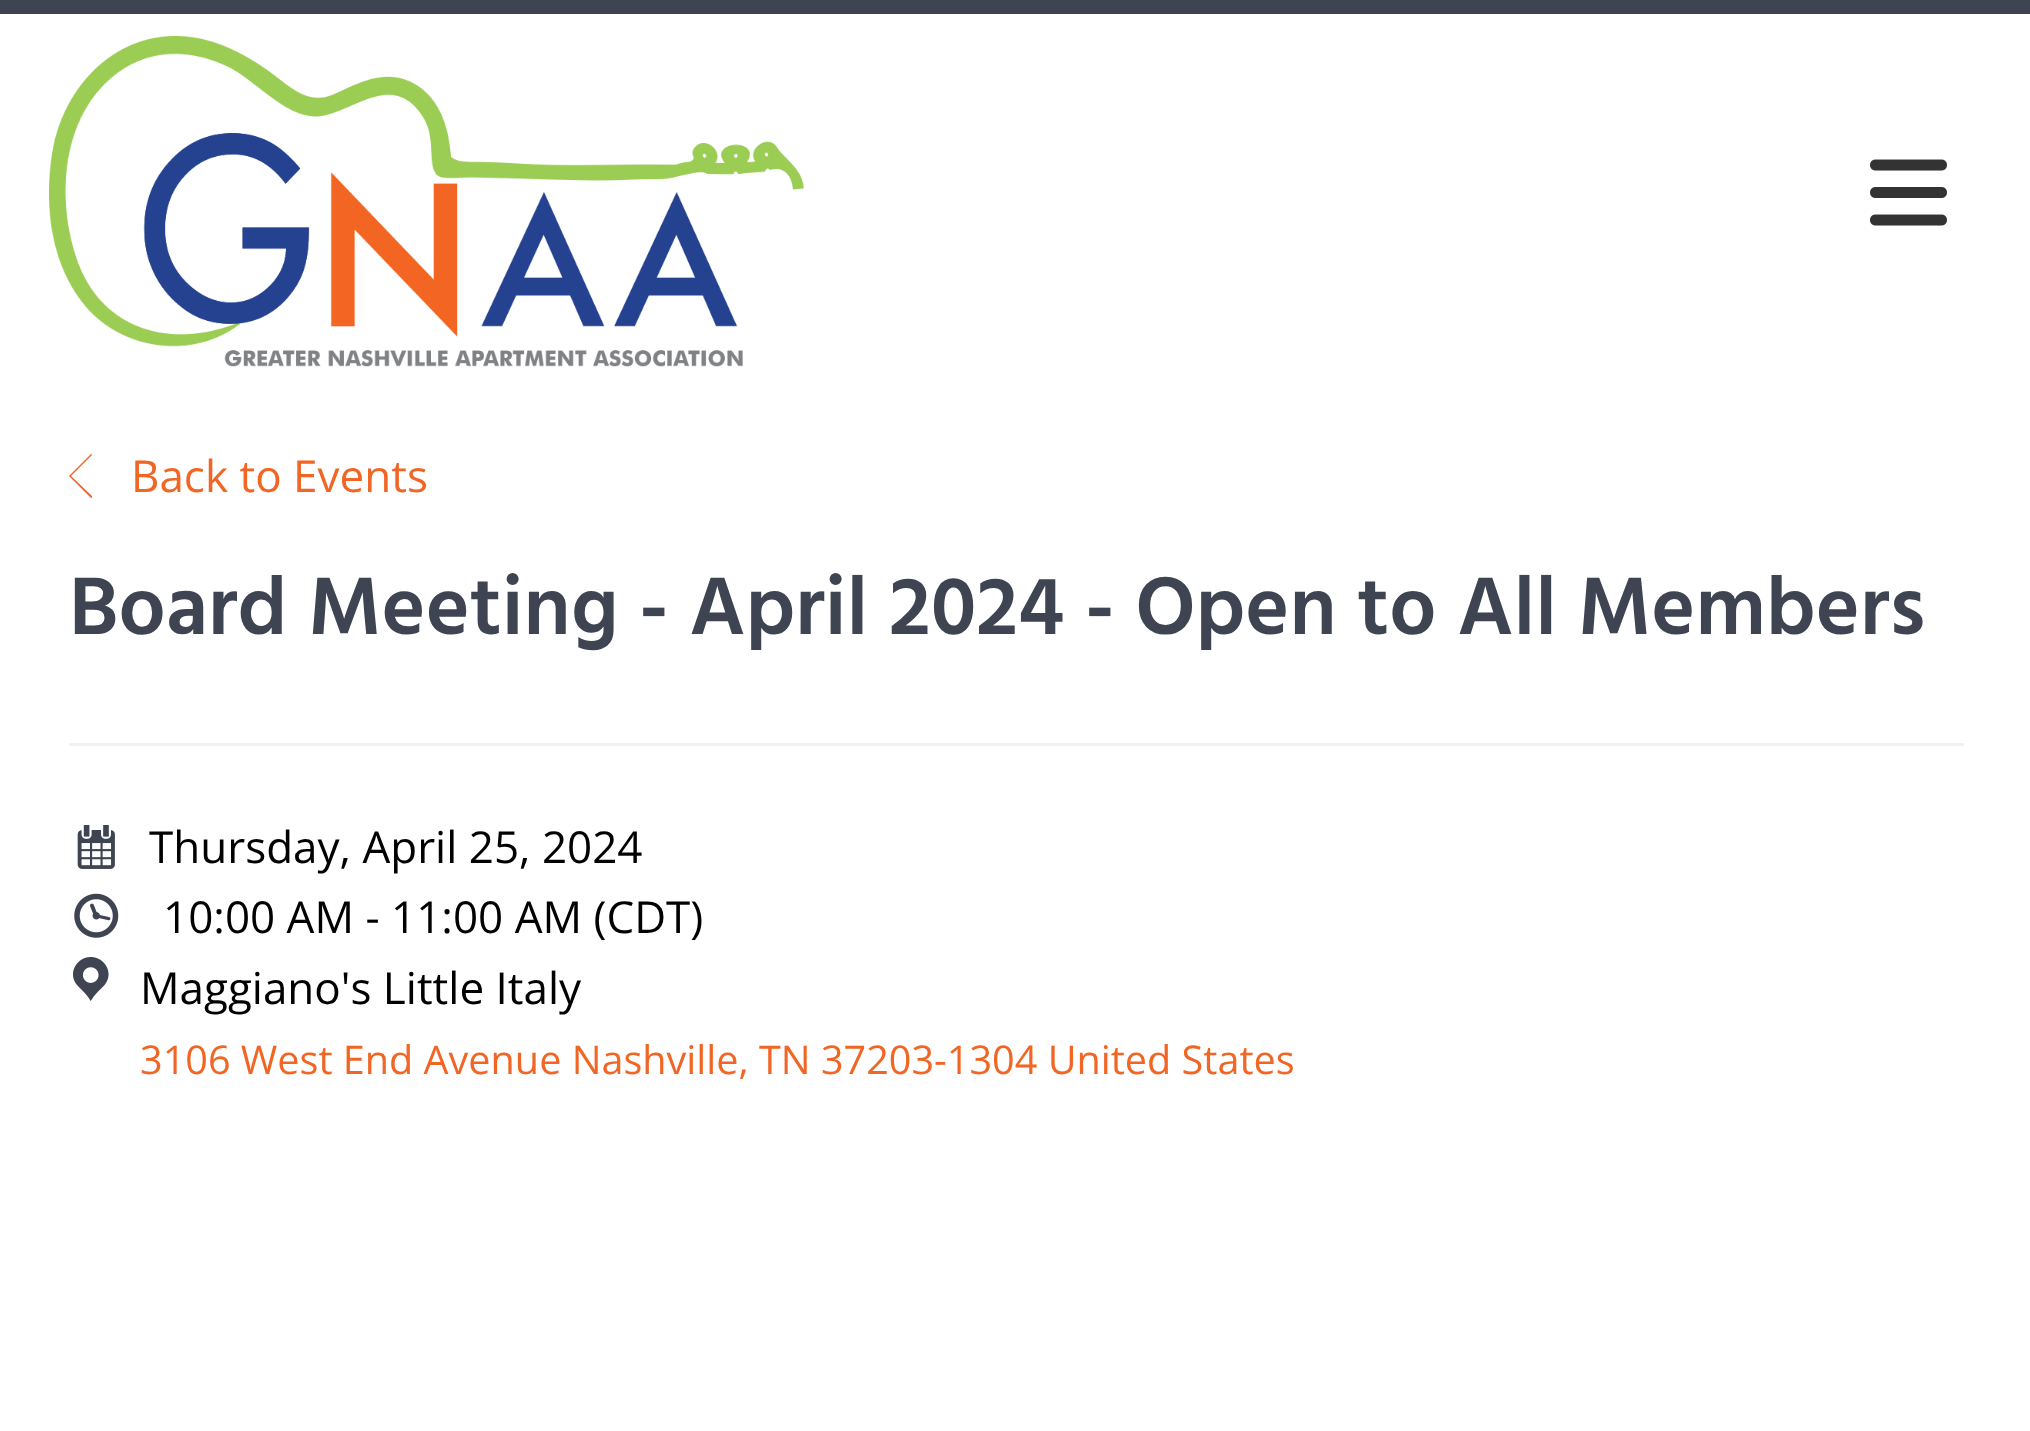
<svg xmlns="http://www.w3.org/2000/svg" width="2030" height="1431">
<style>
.a{font:44px Open Sans;fill:#f16624}
.b{font:600 83.6px Hind;fill:#3e4452}
.c{font:44px Open Sans;fill:#000}
.d{font:39.6px Open Sans;fill:#f16624}
</style>
<rect width="100%" height="100%" fill="#fff"/>
<path fill="#3e4452" d="M0 0h2030v14H0z"/>
<image href="1.png" x="49" y="36" width="755" height="331"/>
<image href="2.png" x="1870" y="159" width="77" height="67"/>
<path fill="#f16624" d="M91 498l-22-22l22-22c1 0 1 1 1 1l-21 21l21 20c0 1 0 2-1 2z"/>
<path fill="#f1f1f1" d="M69 743h1895v3H69z"/>
<image href="3.png" x="77" y="825" width="38" height="44"/>
<image href="4.png" x="74" y="893" width="45" height="45"/>
<image href="5.png" x="73" y="957" width="36" height="44"/>
<text class="a" x="131" y="492">Back to Events</text>
<text class="b" x="69" y="634">Board Meeting - April 2024 - Open to All Members</text>
<text class="c" x="149" y="863">Thursday, April 25, 2024</text>
<text class="c" x="163" y="933">10:00 AM - 11:00 AM (CDT)</text>
<text class="c" x="140" y="1004">Maggiano's Little Italy</text>
<text class="d" x="140" y="1074">3106 West End Avenue Nashville, TN 37203-1304 United States</text>
</svg>
